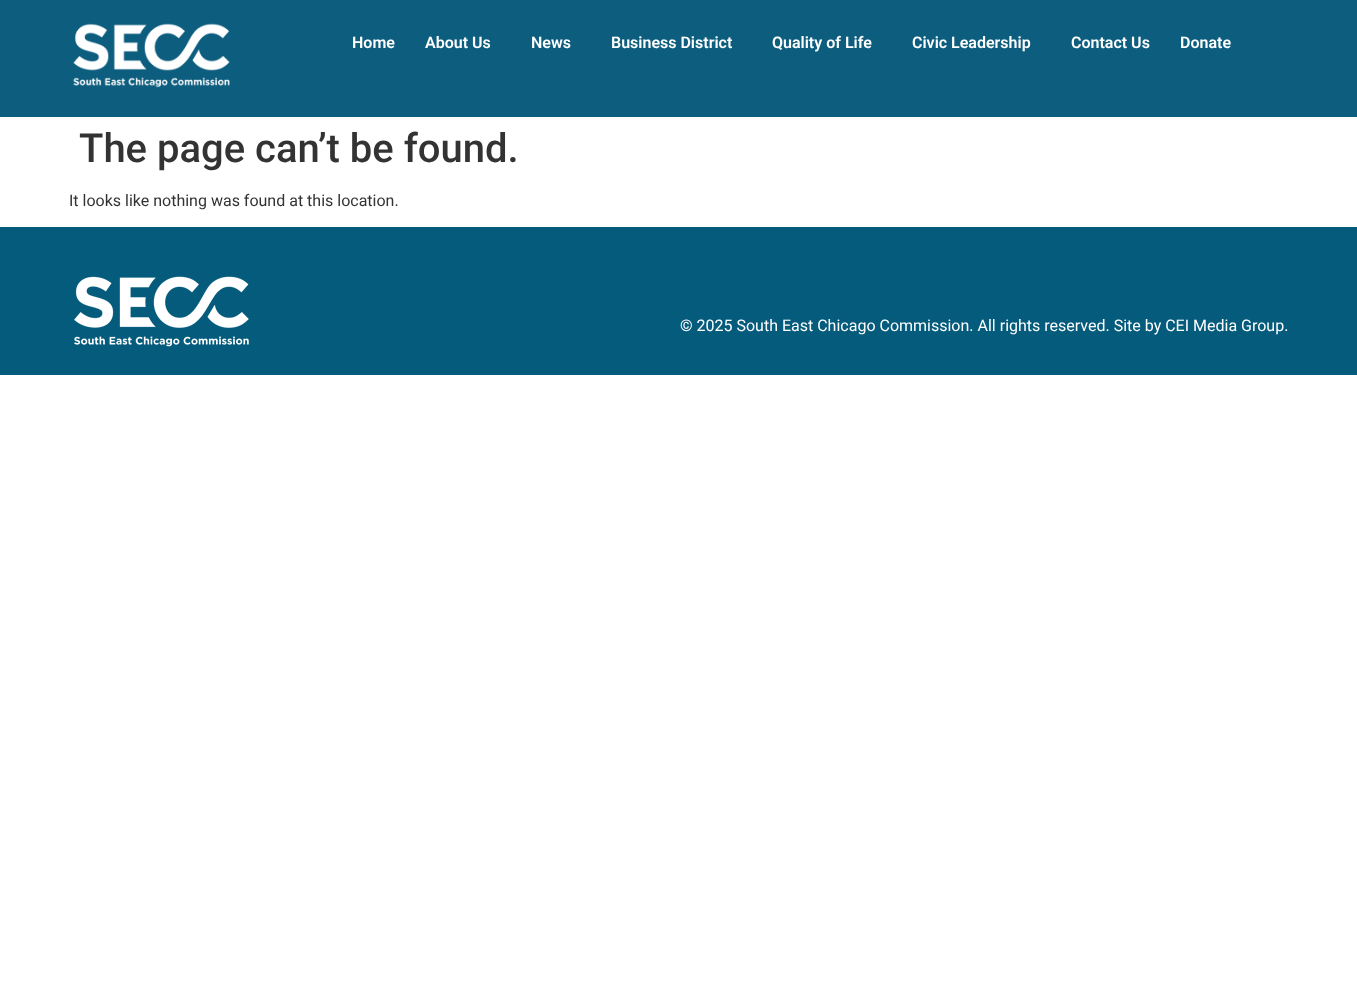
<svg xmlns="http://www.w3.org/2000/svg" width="1357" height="981">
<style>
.a{font:600 16px Roboto;fill:#fff}
.b{font:500 40px Roboto;fill:#333}
.c{font:16px Roboto;fill:#333}
.d{font:16px Roboto;fill:#fff}
</style>
<rect width="100%" height="100%" fill="#fff"/>
<path fill="#0d5d7e" d="M0 0h1357v117H0z"/>
<image href="1.png" x="73" y="23" width="157" height="65"/>
<path fill="#045b7c" d="M0 227h1357v148H0z"/>
<image href="2.png" x="74" y="276" width="175" height="71"/>
<text class="a" x="352" y="48">Home</text>
<text class="a" x="425" y="48">About Us</text>
<text class="a" x="531" y="48">News</text>
<text class="a" x="611" y="48">Business District</text>
<text class="a" x="772" y="48">Quality of Life</text>
<text class="a" x="912" y="48">Civic Leadership</text>
<text class="a" x="1071" y="48">Contact Us</text>
<text class="a" x="1180" y="48">Donate</text>
<text class="b" x="79" y="162">The page can’t be found.</text>
<text class="c" x="69" y="206">It looks like nothing was found at this location.</text>
<text class="d" x="680" y="331">© 2025 South East Chicago Commission. All rights reserved. Site by CEI Media Group.</text>
</svg>
